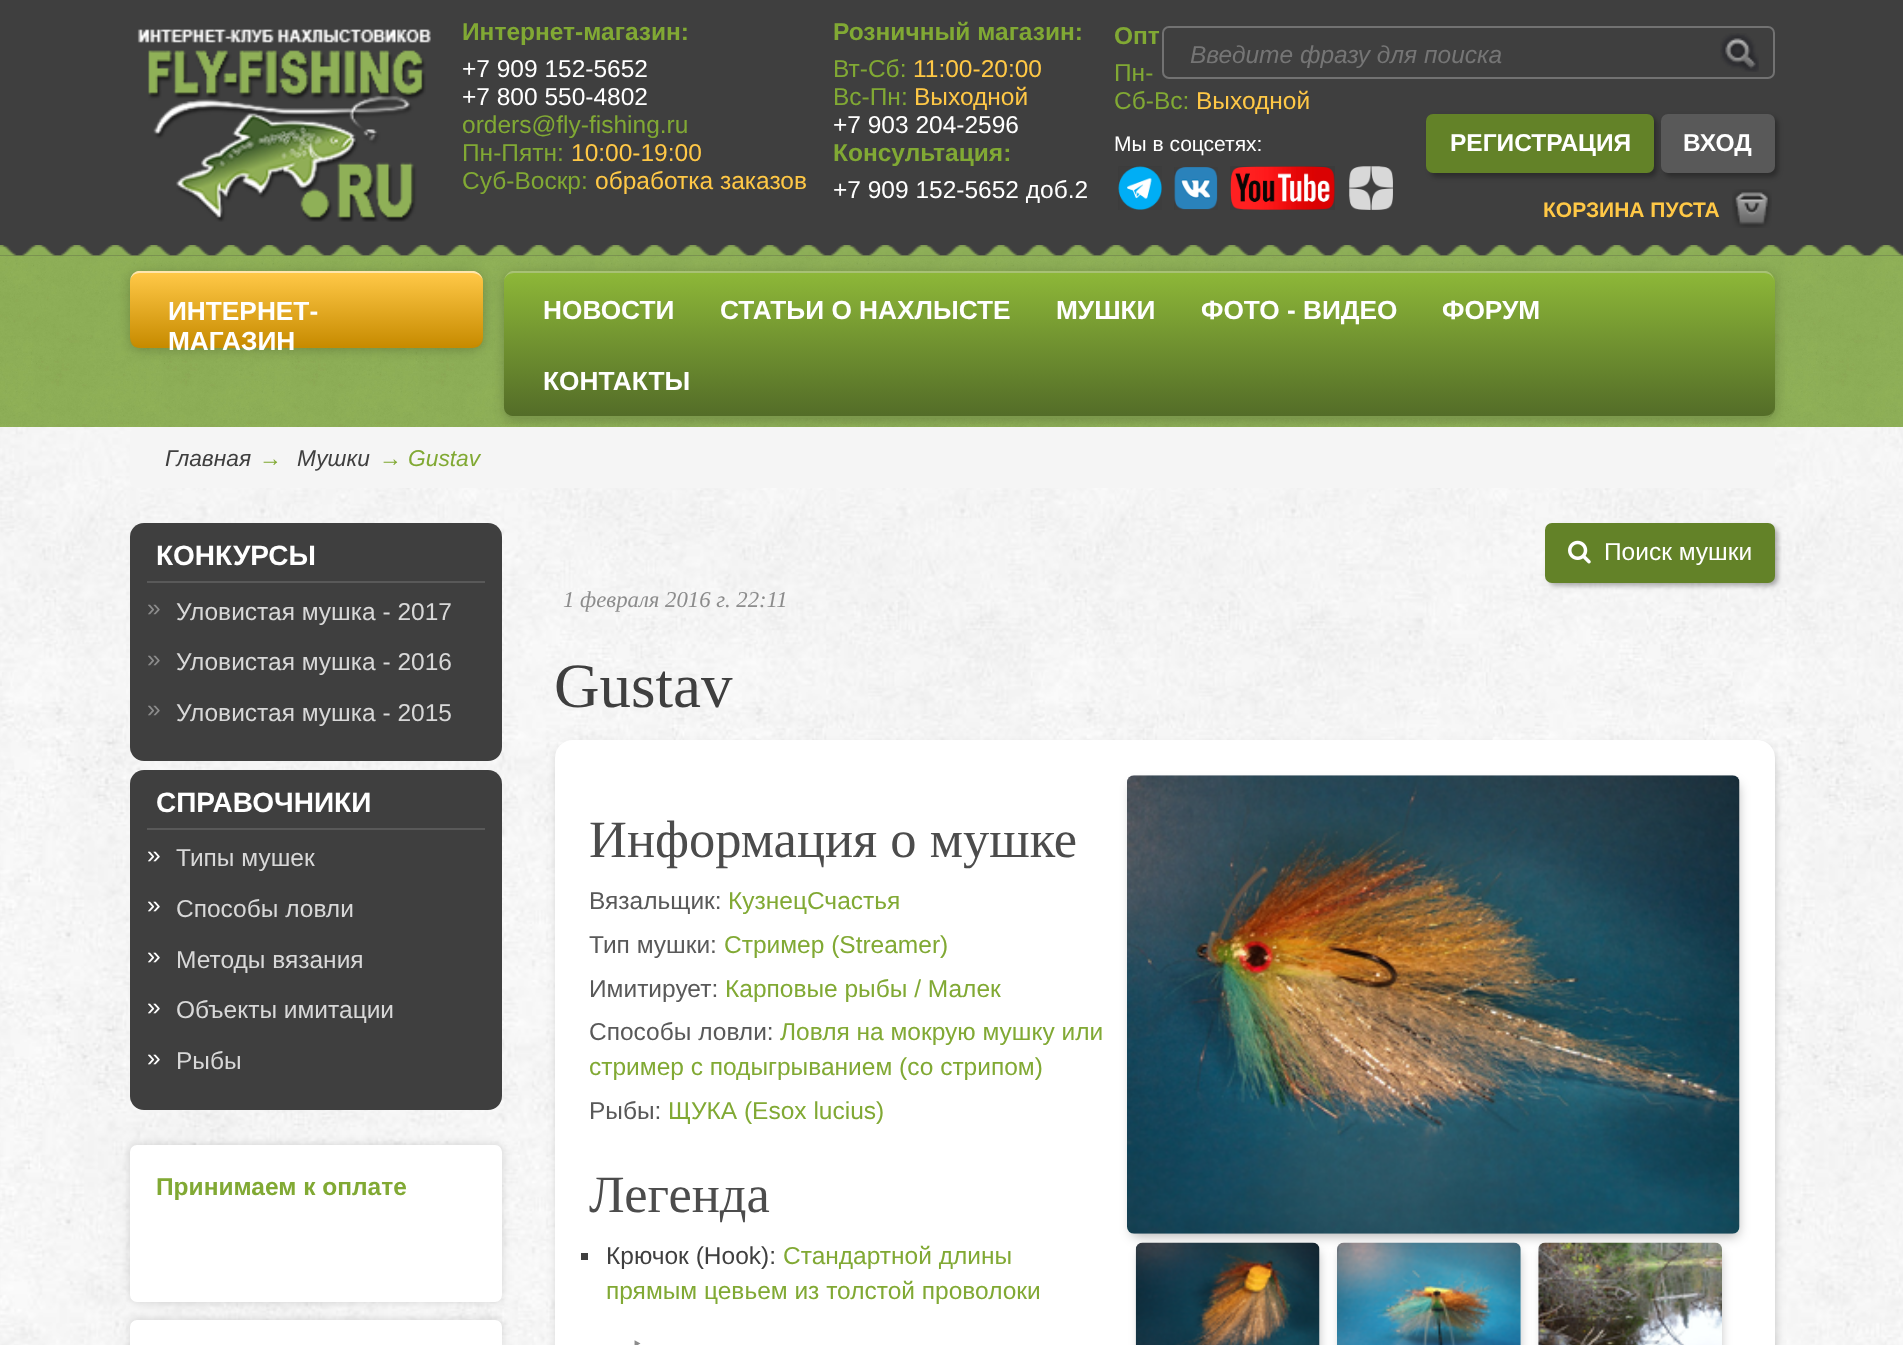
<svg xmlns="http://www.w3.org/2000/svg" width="1903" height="1345">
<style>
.a{font:bold 24.5px Liberation Sans;fill:#81a934}
.b{font:24.5px Liberation Sans;fill:#fff}
.c{font:24.5px Liberation Sans;fill:#81a934}
.d{font:24.5px Liberation Sans;fill:#ffc846}
.e{font:21px Liberation Sans;fill:#fff}
.f{font:italic 24.5px Liberation Sans;fill:#757575}
.g{font:bold 24.5px Liberation Sans;fill:#fff}
.h{font:bold 21px Liberation Sans;fill:#ffc846}
.i{font:bold 26.25px Liberation Sans;fill:#fff}
.j{font:italic 22.75px Liberation Sans;fill:#3f3f3f}
.k{font:italic 22.75px Liberation Sans;fill:#81a934}
.l{font:bold 28px Liberation Sans;fill:#fff}
.m{font:24.5px Liberation Sans;fill:#8c8c8c}
.n{font:24.5px Liberation Sans;fill:#d8d8d8}
.o{font:italic 22.75px Liberation Serif;fill:#8c8c8c}
.p{font:63px Liberation Serif;fill:#3f3f3f}
.q{font:52.5px Liberation Serif;fill:#4c4c4c}
.r{font:24.5px Liberation Sans;fill:#595959}
.s{font:24.5px Liberation Sans;fill:#3f3f3f}
.t{font:22.75px Noto Sans;fill:#8c8c8c}
</style>
<defs>
<clipPath id="clip1"><rect x="130" y="271" width="353" height="77" rx="11"/></clipPath>
<linearGradient id="g1" gradientUnits="userSpaceOnUse" x1="306" y1="273" x2="306" y2="347"><stop offset="0" stop-color="#ffc847"/><stop offset="1" stop-color="#c78b00"/></linearGradient>
<clipPath id="clip2"><rect x="504" y="271" width="1271" height="147" rx="11"/></clipPath>
<linearGradient id="g2" gradientUnits="userSpaceOnUse" x1="1139" y1="273" x2="1139" y2="417"><stop offset="0" stop-color="#8db738"/><stop offset="1" stop-color="#536c28"/></linearGradient>
<clipPath id="clip3"><path d="M1190 40h525v28H1190z"/></clipPath>
</defs>
<rect width="100%" height="100%" fill="#fff"/>
<image href="1.png" x="0" y="427" width="1903" height="918"/>
<path fill="#3f3f3f" d="M0 0h1903v256H0z"/>
<image href="2.png" x="137" y="29" width="294" height="193"/>
<image href="3.png" x="1118" y="166" width="44" height="44"/>
<image href="4.png" x="1174" y="167" width="44" height="43"/>
<image href="5.png" x="1230" y="166" width="105" height="44"/>
<image href="6.png" x="1349" y="166" width="44" height="44"/>
<rect fill="none" stroke="#727272" stroke-width="2" x="1163" y="27" width="611" height="51" rx="6"/>
<image href="7.png" x="1720" y="33" width="39" height="39"/>
<rect fill="#0000004d" filter="blur(2.5px)" x="1430" y="117" width="227" height="60" rx="7"/>
<rect fill="#638228" x="1426" y="114" width="228" height="59" rx="7"/>
<rect fill="#0000004d" filter="blur(2.5px)" x="1664" y="117" width="114" height="60" rx="7"/>
<rect fill="#595959" x="1661" y="114" width="114" height="59" rx="7"/>
<image href="8.png" x="1732" y="189" width="40" height="39"/>
<image href="9.png" x="0" y="245" width="1903" height="11"/>
<image href="10.png" x="0" y="255" width="1903" height="172"/>
<rect fill="#00000033" filter="blur(6px)" x="130" y="273" width="353" height="77" rx="11"/>
<g clip-path="url(#clip1)">
<path fill="url(#g1)" d="M130 273h353v74H130z"/>
</g>
<path fill="#ffe6ad" d="M140 273c-6 0-10 4-10 9c0-5 3-10 8-11h336c5 1 9 6 9 11c0-5-5-9-11-9z"/>
<path fill="#c78b00" d="M472 348c6 0 11-4 11-10c0 5-5 8-11 8h-332c-6 0-10-3-10-8c0 6 4 10 10 10z"/>
<rect fill="#00000033" filter="blur(6px)" x="504" y="273" width="1271" height="147" rx="11"/>
<g clip-path="url(#clip2)">
<path fill="url(#g2)" d="M504 273h1271v144H504z"/>
</g>
<path fill="#a8c175" d="M514 273h1250c6 0 10 4 10 9c0-5-3-10-8-11h-1254c-4 1-8 6-8 11c0-5 5-9 10-9z"/>
<path fill="#7c994c" d="M1764 418c6 0 10-4 10-10c0 5-4 8-10 8h-1250c-5 0-10-3-10-8c0 6 5 10 10 10z"/>
<rect fill="#f5f5f5" x="130" y="427" width="1645" height="61" rx="7"/>
<rect fill="#3f3f3f" x="130" y="523" width="372" height="238" rx="14"/>
<path fill="#595959" d="M147 581h338v2H147z"/>
<rect fill="#3f3f3f" x="130" y="770" width="372" height="340" rx="14"/>
<path fill="#595959" d="M147 828h338v2H147z"/>
<rect fill="#00000026" filter="blur(5px)" x="130" y="1145" width="372" height="157" rx="7"/>
<rect fill="#fff" x="130" y="1145" width="372" height="157" rx="7"/>
<rect fill="#00000026" filter="blur(5px)" x="130" y="1320" width="372" height="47" rx="7"/>
<rect fill="#fff" x="130" y="1320" width="372" height="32" rx="7"/>
<rect fill="#0000004d" filter="blur(2.5px)" x="1549" y="527" width="229" height="59" rx="7"/>
<rect fill="#638228" x="1545" y="523" width="230" height="60" rx="7"/>
<image href="11.png" x="1568" y="540" width="23" height="24"/>
<rect fill="#0000004d" filter="blur(6px)" x="560" y="749" width="1213" height="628" rx="14"/>
<rect fill="#fff" x="555" y="740" width="1220" height="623" rx="18"/>
<path fill="#3f3f3f" d="M581 1253h7v7H581z"/>
<rect fill="#0000004d" filter="blur(6px)" x="1141" y="1251" width="177" height="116" rx="4"/>
<image href="13.png" x="1135" y="1242" width="185" height="103"/>
<rect fill="#0000004d" filter="blur(6px)" x="1342" y="1251" width="177" height="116" rx="4"/>
<image href="14.png" x="1337" y="1242" width="184" height="103"/>
<rect fill="#0000004d" filter="blur(6px)" x="1544" y="1251" width="176" height="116" rx="4"/>
<image href="15.png" x="1538" y="1242" width="184" height="103"/>
<rect fill="#0000004d" filter="blur(6px)" x="1132" y="784" width="606" height="452" rx="4"/>
<image href="12.png" x="1127" y="775" width="613" height="459"/>
<text class="a" x="462" y="40">Интернет-магазин:</text>
<text class="b" x="462" y="77">+7 909 152-5652</text>
<text class="b" x="462" y="105">+7 800 550-4802</text>
<text class="c" x="462" y="133">orders@fly-fishing.ru</text>
<text class="c" x="462" y="161">Пн-Пятн:</text>
<text class="d" x="571" y="161">10:00-19:00</text>
<text class="c" x="462" y="189">Суб-Воскр:</text>
<text class="d" x="595" y="189">обработка заказов</text>
<text class="a" x="833" y="40">Розничный магазин:</text>
<text class="c" x="833" y="77">Вт-Сб:</text>
<text class="d" x="913" y="77">11:00-20:00</text>
<text class="c" x="833" y="105">Вс-Пн:</text>
<text class="d" x="914" y="105">Выходной</text>
<text class="b" x="833" y="133">+7 903 204-2596</text>
<text class="a" x="833" y="161">Консультация:</text>
<text class="b" x="833" y="198">+7 909 152-5652 доб.2</text>
<text class="a" x="1114" y="44">Опт</text>
<text class="c" x="1114" y="81">Пн-</text>
<text class="c" x="1114" y="109">Сб-Вс:</text>
<text class="d" x="1196" y="109">Выходной</text>
<text class="e" x="1114" y="151">Мы в соцсетях:</text>
<g clip-path="url(#clip3)">
<text class="f" x="1190" y="63">Введите фразу для поиска</text>
</g>
<text class="g" x="1450" y="151">РЕГИСТРАЦИЯ</text>
<text class="g" x="1683" y="151">ВХОД</text>
<text class="h" x="1543" y="217">КОРЗИНА ПУСТА</text>
<text class="i" x="168" y="320">ИНТЕРНЕТ-</text>
<text class="i" x="168" y="350">МАГАЗИН</text>
<text class="i" x="543" y="319">НОВОСТИ</text>
<text class="i" x="720" y="319">СТАТЬИ О НАХЛЫСТЕ</text>
<text class="i" x="1056" y="319">МУШКИ</text>
<text class="i" x="1201" y="319">ФОТО - ВИДЕО</text>
<text class="i" x="1442" y="319">ФОРУМ</text>
<text class="i" x="543" y="390">КОНТАКТЫ</text>
<text class="j" x="165" y="466">Главная</text>
<text class="k" x="259" y="466">→</text>
<text class="j" x="297" y="466">Мушки</text>
<text class="k" x="379" y="466">→ Gustav</text>
<text class="l" x="156" y="565">КОНКУРСЫ</text>
<text class="m" x="147" y="616">»</text>
<text class="n" x="176" y="620">Уловистая мушка - 2017</text>
<text class="m" x="147" y="667">»</text>
<text class="n" x="176" y="670">Уловистая мушка - 2016</text>
<text class="m" x="147" y="717">»</text>
<text class="n" x="176" y="721">Уловистая мушка - 2015</text>
<text class="l" x="156" y="812">СПРАВОЧНИКИ</text>
<text class="b" x="147" y="863">»</text>
<text class="n" x="176" y="866">Типы мушек</text>
<text class="b" x="147" y="913">»</text>
<text class="n" x="176" y="917">Способы ловли</text>
<text class="b" x="147" y="964">»</text>
<text class="n" x="176" y="968">Методы вязания</text>
<text class="b" x="147" y="1015">»</text>
<text class="n" x="176" y="1018">Объекты имитации</text>
<text class="b" x="147" y="1066">»</text>
<text class="n" x="176" y="1069">Рыбы</text>
<text class="a" x="156" y="1195">Принимаем к оплате</text>
<text class="b" x="1604" y="560">Поиск мушки</text>
<text class="o" x="563" y="607">1 февраля 2016 г. 22:11</text>
<text class="p" x="554" y="707">Gustav</text>
<text class="q" x="589" y="857">Информация о мушке</text>
<text class="r" x="589" y="909">Вязальщик:</text>
<text class="c" x="728" y="909">КузнецСчастья</text>
<text class="r" x="589" y="953">Тип мушки:</text>
<text class="c" x="724" y="953">Стример (Streamer)</text>
<text class="r" x="589" y="997">Имитирует:</text>
<text class="c" x="725" y="997">Карповые рыбы / Малек</text>
<text class="r" x="589" y="1040">Способы ловли:</text>
<text class="c" x="780" y="1040">Ловля на мокрую мушку или</text>
<text class="c" x="589" y="1075">стример с подыгрыванием (со стрипом)</text>
<text class="r" x="589" y="1119">Рыбы:</text>
<text class="c" x="668" y="1119">ЩУКА (Esox lucius)</text>
<text class="q" x="589" y="1212">Легенда</text>
<text class="s" x="606" y="1264">Крючок (Hook):</text>
<text class="c" x="783" y="1264">Стандартной длины</text>
<text class="c" x="606" y="1299">прямым цевьем из толстой проволоки</text>
<text class="t" x="633" y="1352">‣</text>
</svg>
